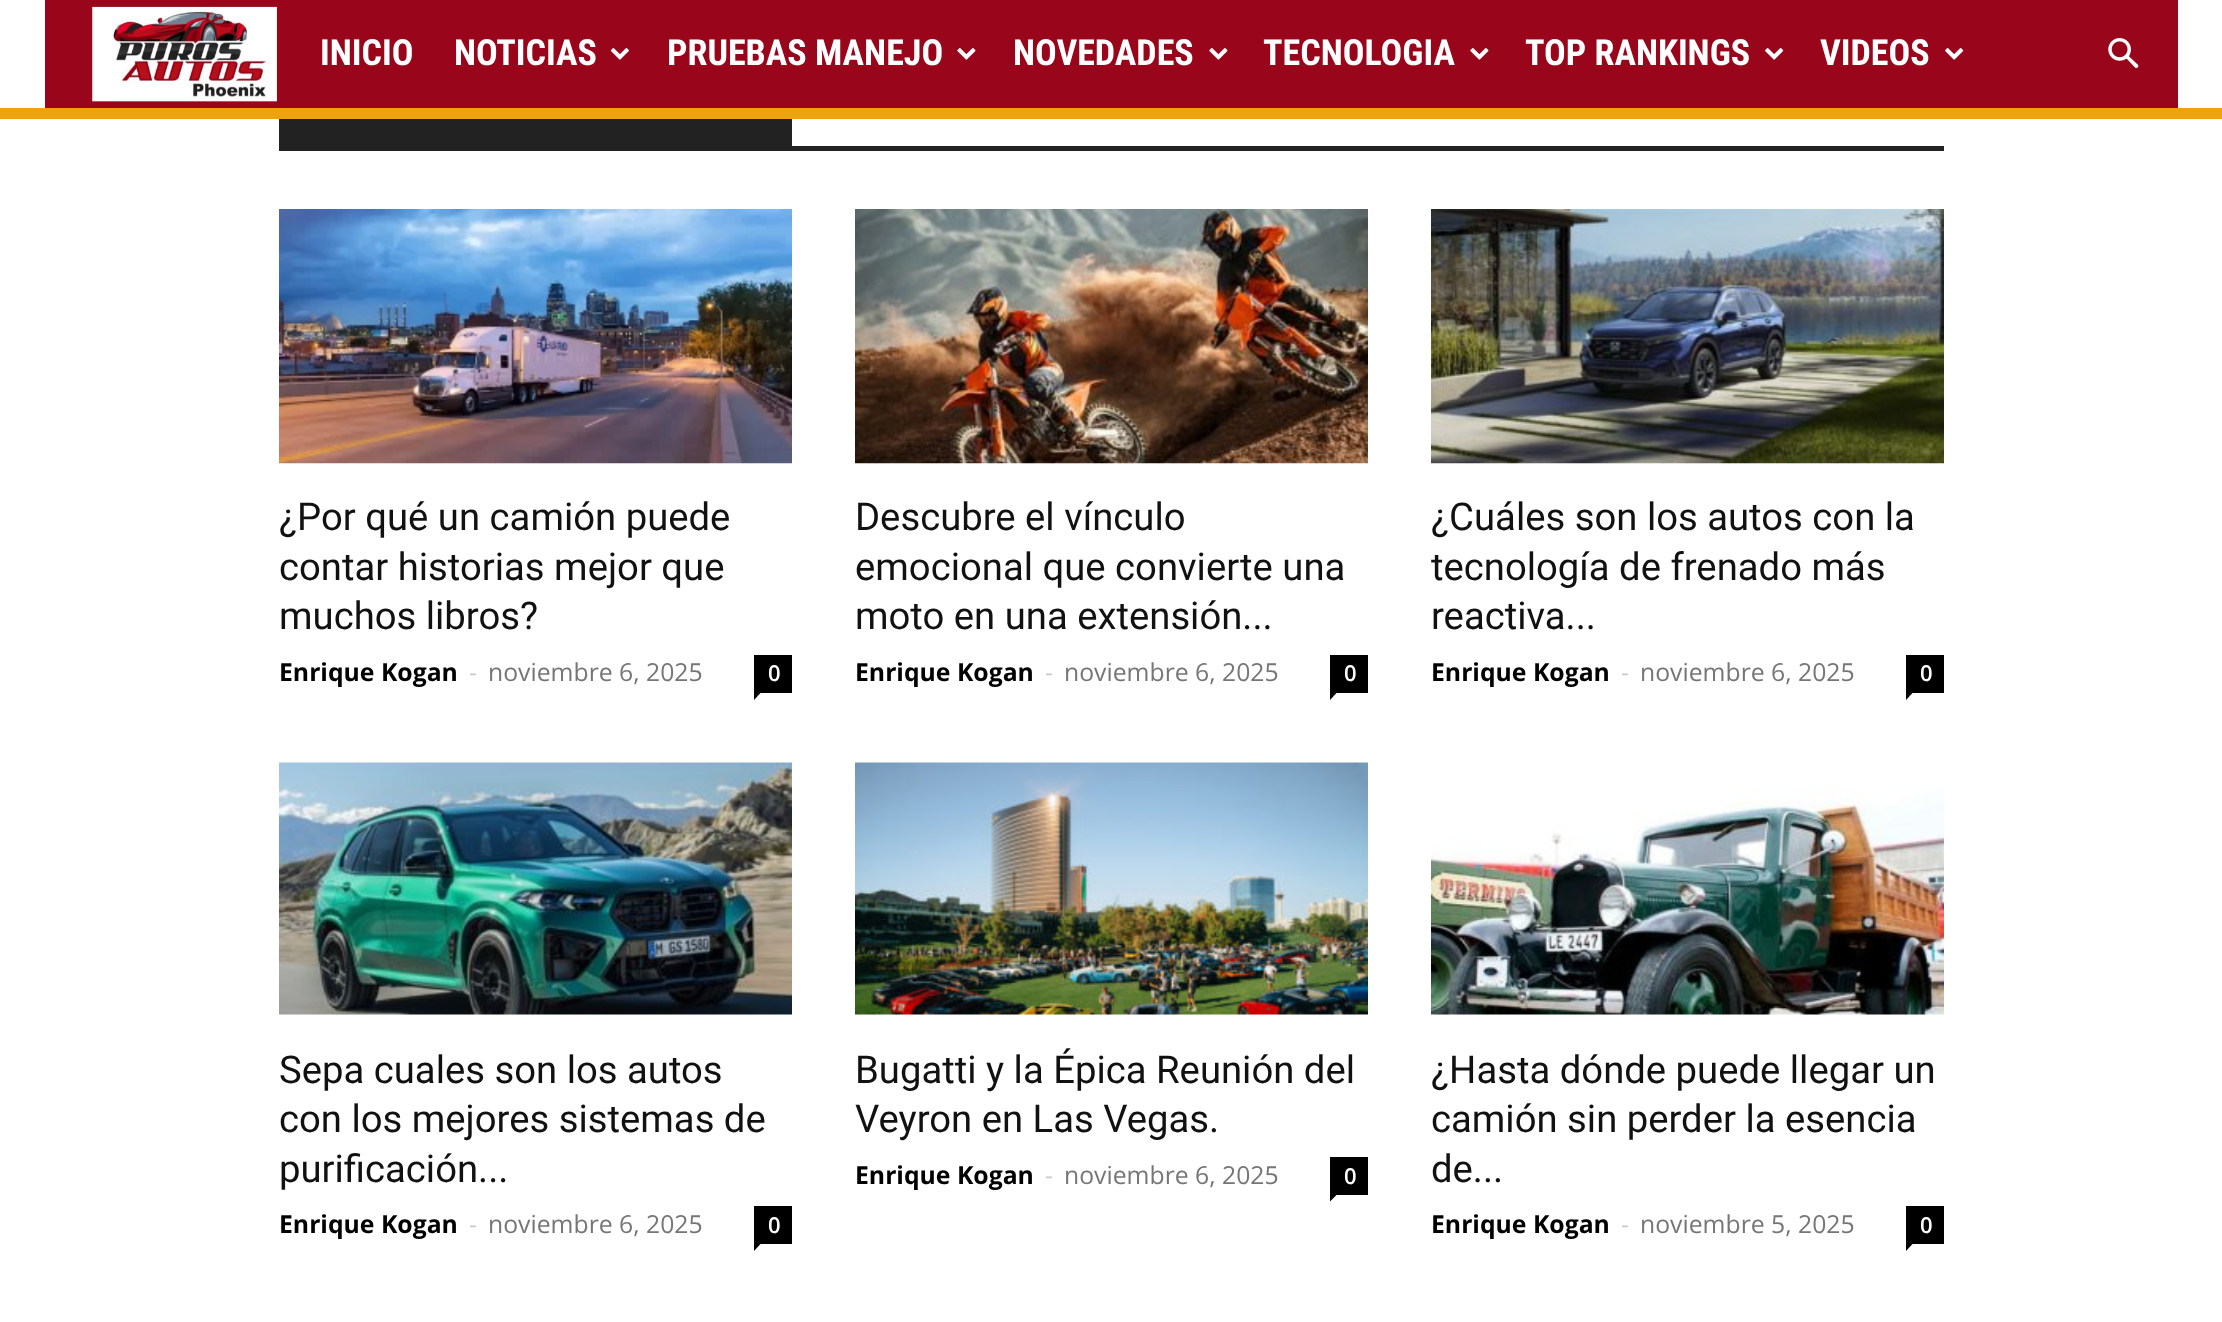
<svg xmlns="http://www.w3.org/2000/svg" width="2222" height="1322">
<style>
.a{font:bold 36px Roboto Condensed;fill:#fff}
.b{font:38.25px Roboto;fill:#111}
.c{font:bold 24.75px Open Sans;fill:#000}
.d{font:24.75px Open Sans;fill:#ccc}
.e{font:24.75px Open Sans;fill:#767676}
.f{font:600 22px Open Sans;fill:#fff}
</style>
<rect width="100%" height="100%" fill="#fff"/>
<path fill="#efa30b" d="M0 108h2222v11H0z"/>
<path fill="#99051b" d="M45 0h2133v108H45z"/>
<image href="1.png" x="92" y="6" width="185" height="96"/>
<image href="2.png" x="610" y="48" width="19" height="12"/>
<image href="3.png" x="957" y="48" width="19" height="12"/>
<image href="3.png" x="1209" y="48" width="19" height="12"/>
<image href="3.png" x="1470" y="48" width="19" height="12"/>
<image href="4.png" x="1765" y="48" width="19" height="12"/>
<image href="4.png" x="1945" y="48" width="19" height="12"/>
<image href="5.png" x="2108" y="38" width="31" height="30"/>
<path fill="#222" d="M279 146h1665v5H279z"/>
<path fill="#222" d="M279 119h513v27H279z"/>
<image href="6.png" x="279" y="209" width="513" height="255"/>
<path fill="#000" d="M754 655h38v38H754z"/>
<path fill="#000" d="M754 693h6.5l-6.5 7z"/>
<image href="7.png" x="855" y="209" width="513" height="255"/>
<path fill="#000" d="M1330 655h38v38H1330z"/>
<path fill="#000" d="M1330 693h6.5l-6.5 7z"/>
<image href="8.png" x="1431" y="209" width="513" height="255"/>
<path fill="#000" d="M1906 655h38v38H1906z"/>
<path fill="#000" d="M1906 693h6.5l-6.5 7z"/>
<image href="9.png" x="279" y="762" width="513" height="253"/>
<path fill="#000" d="M754 1206h38v38H754z"/>
<path fill="#000" d="M754 1244h6.5l-6.5 7z"/>
<image href="10.png" x="855" y="762" width="513" height="253"/>
<path fill="#000" d="M1330 1157h38v38H1330z"/>
<path fill="#000" d="M1330 1195h6.5l-6.5 6.5z"/>
<image href="11.png" x="1431" y="788" width="513" height="227"/>
<path fill="#000" d="M1906 1206h38v38H1906z"/>
<path fill="#000" d="M1906 1244h6.5l-6.5 7z"/>
<text class="a" x="320" y="65">INICIO</text>
<text class="a" x="454" y="65">NOTICIAS</text>
<text class="a" x="667" y="65">PRUEBAS MANEJO</text>
<text class="a" x="1013" y="65">NOVEDADES</text>
<text class="a" x="1263" y="65">TECNOLOGIA</text>
<text class="a" x="1525" y="65">TOP RANKINGS</text>
<text class="a" x="1820" y="65">VIDEOS</text>
<text class="b" x="279" y="530">¿Por qué un camión puede</text>
<text class="b" x="279" y="580">contar historias mejor que</text>
<text class="b" x="279" y="629">muchos libros?</text>
<text class="c" x="279" y="681">Enrique Kogan</text>
<text class="d" x="469" y="681">-</text>
<text class="e" x="488" y="681">noviembre 6, 2025</text>
<text class="f" x="768" y="681">0</text>
<text class="b" x="855" y="530">Descubre el vínculo</text>
<text class="b" x="855" y="580">emocional que convierte una</text>
<text class="b" x="855" y="629">moto en una extensión...</text>
<text class="c" x="855" y="681">Enrique Kogan</text>
<text class="d" x="1045" y="681">-</text>
<text class="e" x="1064" y="681">noviembre 6, 2025</text>
<text class="f" x="1344" y="681">0</text>
<text class="b" x="1431" y="530">¿Cuáles son los autos con la</text>
<text class="b" x="1431" y="580">tecnología de frenado más</text>
<text class="b" x="1431" y="629">reactiva...</text>
<text class="c" x="1431" y="681">Enrique Kogan</text>
<text class="d" x="1621" y="681">-</text>
<text class="e" x="1640" y="681">noviembre 6, 2025</text>
<text class="f" x="1920" y="681">0</text>
<text class="b" x="279" y="1083">Sepa cuales son los autos</text>
<text class="b" x="279" y="1132">con los mejores sistemas de</text>
<text class="b" x="279" y="1182">purificación...</text>
<text class="c" x="279" y="1233">Enrique Kogan</text>
<text class="d" x="469" y="1233">-</text>
<text class="e" x="488" y="1233">noviembre 6, 2025</text>
<text class="f" x="768" y="1233">0</text>
<text class="b" x="855" y="1083">Bugatti y la Épica Reunión del</text>
<text class="b" x="855" y="1132">Veyron en Las Vegas.</text>
<text class="c" x="855" y="1184">Enrique Kogan</text>
<text class="d" x="1045" y="1184">-</text>
<text class="e" x="1064" y="1184">noviembre 6, 2025</text>
<text class="f" x="1344" y="1184">0</text>
<text class="b" x="1431" y="1083">¿Hasta dónde puede llegar un</text>
<text class="b" x="1431" y="1132">camión sin perder la esencia</text>
<text class="b" x="1431" y="1182">de...</text>
<text class="c" x="1431" y="1233">Enrique Kogan</text>
<text class="d" x="1621" y="1233">-</text>
<text class="e" x="1640" y="1233">noviembre 5, 2025</text>
<text class="f" x="1920" y="1233">0</text>
</svg>
